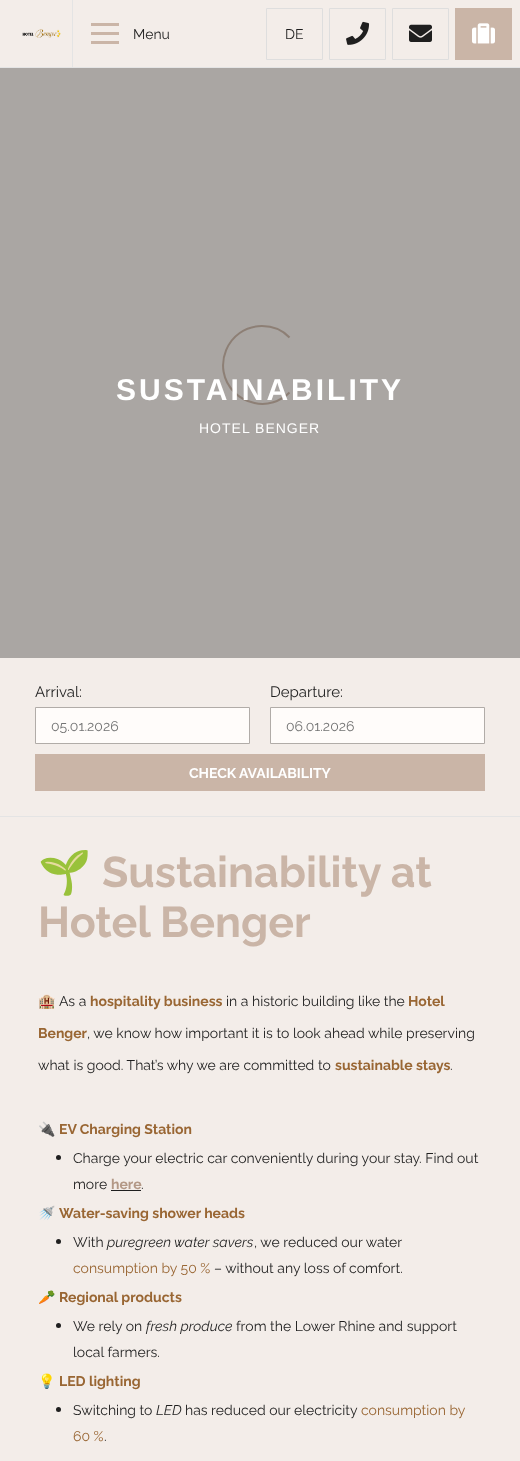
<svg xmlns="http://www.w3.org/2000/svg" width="520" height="1461">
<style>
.a{font:14px Raleway;fill:#1f1f1f}
.b{font:bold 30px Liberation Sans;letter-spacing:3px;fill:#fff}
.c{font:14px Liberation Sans;letter-spacing:1px;fill:#fff}
.d{font:15px Raleway;fill:#1f1f1f}
.e{font:14px Raleway;fill:#737373}
.f{font:bold 14px Raleway;fill:#fff}
.g{font:bold 43px Noto Color Emoji;fill:#cab5a7}
.h{font:bold 43px Raleway;fill:#cab5a7}
.i{font:14px Noto Color Emoji;fill:#1f1f1f}
.j{font:bold 14px Raleway;fill:#963}
.k{font:bold 14px Raleway;fill:#b39886}
.l{font:italic 14px Raleway;fill:#1f1f1f}
.m{font:14px Raleway;fill:#963}
</style>
<rect width="100%" height="100%" fill="#f3ede9"/>
<path fill="#aaa6a3" d="M0 68h520v590H0z"/>
<path fill="#e4e4e4" d="M0 67h520v1H0z"/>
<image href="1.png" x="22" y="29" width="39" height="9"/>
<path fill="#e4e4e4" d="M72 0h1v67H72z"/>
<path fill="#cab5a7" d="M91 23h28v3H91z"/>
<path fill="#cab5a7" d="M91 32h28v3H91z"/>
<path fill="#cab5a7" d="M91 41h28v3H91z"/>
<path fill="none" stroke="#dedede" d="M266.5 8.5h56v51H266.5z"/>
<path fill="none" stroke="#dedede" d="M329.5 8.5h56v51H329.5z"/>
<image href="2.png" x="346" y="21" width="24" height="24"/>
<path fill="none" stroke="#dedede" d="M392.5 8.5h56v51H392.5z"/>
<image href="3.png" x="409" y="24" width="23" height="18"/>
<path fill="#cab5a7" d="M455 8h57v52H455z"/>
<image href="4.png" x="472" y="23" width="23" height="21"/>
<path fill="none" stroke="#8d7f75" stroke-width="2" d="M289.5 392.5c-9 9-22.5 13.5-35 10.5c-7.5-1.5-14.5-5-20-10.5c-24.5-24.5-7-66.5 27.5-66.5c10.5 0 20.5 4 27.5 11.5"/>
<path fill="#e4e4e4" d="M0 816h520v1H0z"/>
<path fill="#fffcfa" stroke="#b1aca8" d="M35.5 707.5h214v36H35.5z"/>
<path fill="#fffcfa" stroke="#b1aca8" d="M270.5 707.5h214v36H270.5z"/>
<path fill="#cab5a7" d="M35 754h450v37H35z"/>
<circle fill="#1f1f1f" cx="58.5" cy="1157.5" r="2.5"/>
<path fill="#1f1f1f" d="M111 1190h30v1H111z"/>
<circle fill="#1f1f1f" cx="58.5" cy="1241.5" r="2.5"/>
<circle fill="#1f1f1f" cx="58.5" cy="1325.5" r="2.5"/>
<circle fill="#1f1f1f" cx="58.5" cy="1409.5" r="2.5"/>
<text class="a" x="133" y="39">Menu</text>
<text class="a" x="285" y="39">DE</text>
<text class="b" x="116" y="400">SUSTAINABILITY</text>
<text class="c" x="199" y="433">HOTEL BENGER</text>
<text class="d" x="35" y="697">Arrival:</text>
<text class="e" x="51" y="731">05.01.2026</text>
<text class="d" x="270" y="697">Departure:</text>
<text class="e" x="286" y="731">06.01.2026</text>
<text class="f" x="189" y="778">CHECK AVAILABILITY</text>
<text class="g" x="38" y="887">🌱</text>
<text class="h" x="102" y="887">Sustainability at</text>
<text class="h" x="38" y="937">Hotel Benger</text>
<text class="i" x="38" y="1006">🏨</text>
<text class="a" x="59" y="1006">As a</text>
<text class="j" x="90" y="1006">hospitality business</text>
<text class="a" x="226" y="1006">in a historic building like the</text>
<text class="j" x="408" y="1006">Hotel</text>
<text class="j" x="38" y="1038">Benger</text>
<text class="a" x="87" y="1038">, we know how important it is to look ahead while preserving</text>
<text class="a" x="38" y="1070">what is good. That’s why we are committed to</text>
<text class="j" x="335" y="1070">sustainable stays</text>
<text class="a" x="450" y="1070">.</text>
<text class="i" x="38" y="1134">🔌</text>
<text class="j" x="59" y="1134">EV Charging Station</text>
<text class="a" x="73" y="1163">Charge your electric car conveniently during your stay. Find out</text>
<text class="a" x="73" y="1189">more</text>
<text class="k" x="111" y="1189">here</text>
<text class="a" x="141" y="1189">.</text>
<text class="i" x="38" y="1218">🚿</text>
<text class="j" x="59" y="1218">Water-saving shower heads</text>
<text class="a" x="73" y="1247">With</text>
<text class="l" x="107" y="1247">puregreen water savers</text>
<text class="a" x="254" y="1247">, we reduced our water</text>
<text class="m" x="73" y="1273">consumption by 50 %</text>
<text class="a" x="214" y="1273">– without any loss of comfort.</text>
<text class="i" x="38" y="1302">🥕</text>
<text class="j" x="59" y="1302">Regional products</text>
<text class="a" x="73" y="1331">We rely on</text>
<text class="l" x="146" y="1331">fresh produce</text>
<text class="a" x="236" y="1331">from the Lower Rhine and support</text>
<text class="a" x="73" y="1357">local farmers.</text>
<text class="i" x="38" y="1386">💡</text>
<text class="j" x="59" y="1386">LED lighting</text>
<text class="a" x="73" y="1415">Switching to</text>
<text class="l" x="156" y="1415">LED</text>
<text class="a" x="185" y="1415">has reduced our electricity</text>
<text class="m" x="361" y="1415">consumption by</text>
<text class="m" x="73" y="1441">60 %</text>
<text class="a" x="104" y="1441">.</text>
</svg>
